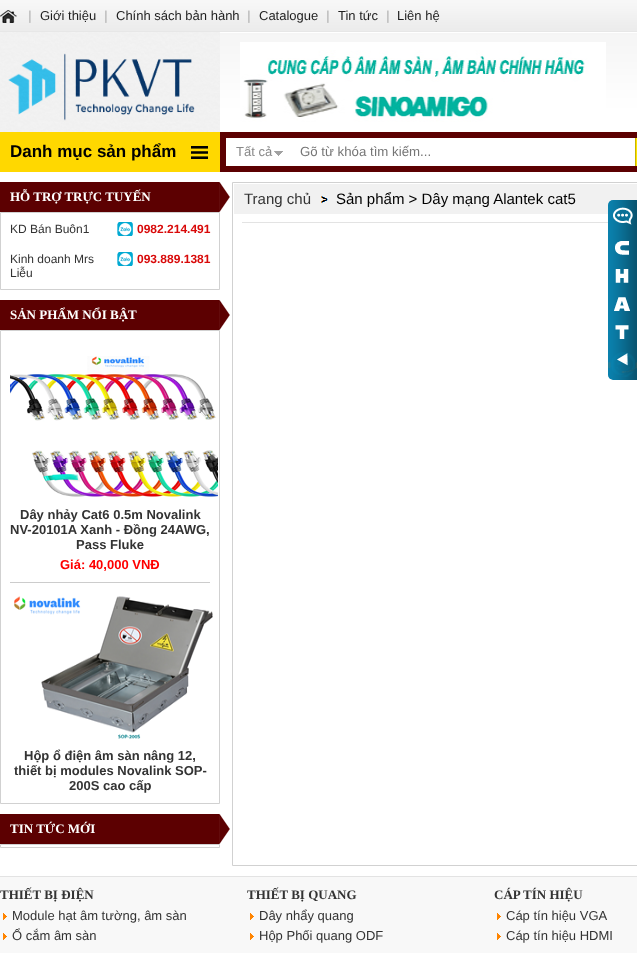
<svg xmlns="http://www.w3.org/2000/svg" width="637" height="953">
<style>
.a{font:bold 13px Liberation Sans;fill:#c3c3c3}
.b{font:13px Liberation Sans;fill:#1e1e1e}
.c{font:bold 17px Liberation Sans;fill:#000}
.d{font:13px Liberation Sans;fill:#888}
.e{font:13.25px Liberation Sans;fill:#757575}
.f{font:bold 13px Liberation Serif;fill:#fff}
.g{font:12px Liberation Sans;fill:#333}
.h{font:bold 12px Liberation Sans;fill:#d90909}
.i{font:bold 13px Liberation Sans;fill:#333}
.j{font:bold 13px Liberation Sans;fill:#f00}
.k{font:15px Liberation Sans;fill:#333}
.l{font:15px Liberation Sans;fill:#000}
.m{font:bold 13px Liberation Serif;fill:#333}
.n{font:13px Liberation Sans;fill:#333}
</style>
<rect width="100%" height="100%" fill="#fff"/>
<image href="1.png" x="220" y="33" width="417" height="139"/>
<image href="2.png" x="0" y="0" width="637" height="32"/>
<image href="3.png" x="0" y="10" width="17" height="13"/>
<image href="4.png" x="0" y="32" width="220" height="100"/>
<image href="5.png" x="240" y="42" width="366" height="80"/>
<path fill="#ffd800" d="M0 132h220v40H0z"/>
<image href="6.png" x="191" y="146" width="17" height="13"/>
<path fill="#fff" d="M226 138h409v28H226z"/>
<image href="7.png" x="274" y="151" width="9" height="5"/>
<image href="8.png" x="635" y="138" width="2" height="28"/>
<path fill="#5c0001" d="M0 182h219v30H0z"/>
<image href="9.png" x="219" y="182" width="11" height="30"/>
<path fill="none" stroke="#d1d1d1" d="M0.5 212.5h219v77H0.5z"/>
<image href="10.png" x="117" y="222" width="16" height="14"/>
<image href="10.png" x="117" y="252" width="16" height="14"/>
<path fill="#5c0001" d="M0 300h219v30H0z"/>
<image href="9.png" x="219" y="300" width="11" height="30"/>
<path fill="none" stroke="#d1d1d1" d="M0.5 330.5h219v473H0.5z"/>
<path fill="#ccc" d="M10 582h200v1H10z"/>
<image href="11.png" x="10" y="356" width="208" height="141"/>
<image href="12.png" x="14" y="596" width="199" height="143"/>
<path fill="#5c0001" d="M0 814h219v30H0z"/>
<image href="9.png" x="219" y="814" width="11" height="30"/>
<path fill="none" stroke="#d1d1d1" d="M0.5 844.5h219v3H0.5z"/>
<path fill="none" stroke="#d1d1d1" d="M232.5 182.5h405v683H232.5z"/>
<path fill="#f1f1f1" d="M234 184h403v30H234z"/>
<image href="13.png" x="321" y="196" width="7" height="7"/>
<path fill="#e3e3e3" d="M242 222h366v1H242z"/>
<image href="14.png" x="608" y="200" width="29" height="180"/>
<path fill="#f8f8f8" d="M0 877h637v76H0z"/>
<path fill="#e3e3e3" d="M0 876h637v1H0z"/>
<image href="15.png" x="3" y="913" width="4" height="7"/>
<image href="15.png" x="3" y="933" width="4" height="7"/>
<image href="15.png" x="250" y="913" width="4" height="7"/>
<image href="15.png" x="250" y="933" width="4" height="7"/>
<image href="15.png" x="497" y="913" width="4" height="7"/>
<image href="15.png" x="497" y="933" width="4" height="7"/>
<text class="a" x="28" y="20">|</text>
<text class="b" x="40" y="20">Giới thiệu</text>
<text class="a" x="104" y="20">|</text>
<text class="b" x="116" y="20">Chính sách bản hành</text>
<text class="a" x="247" y="20">|</text>
<text class="b" x="259" y="20">Catalogue</text>
<text class="a" x="326" y="20">|</text>
<text class="b" x="338" y="20">Tin tức</text>
<text class="a" x="386" y="20">|</text>
<text class="b" x="397" y="20">Liên hệ</text>
<text class="c" x="10" y="157">Danh mục sản phẩm</text>
<text class="d" x="236" y="156">Tất cả</text>
<text class="e" x="300" y="156">Gõ từ khóa tìm kiếm...</text>
<text class="f" x="10" y="201">HỖ TRỢ TRỰC TUYẾN</text>
<text class="g" x="10" y="233">KD Bán Buôn1</text>
<text class="h" x="137" y="233">0982.214.491</text>
<text class="g" x="10" y="263">Kinh doanh Mrs</text>
<text class="h" x="137" y="263">093.889.1381</text>
<text class="g" x="10" y="277">Liễu</text>
<text class="f" x="10" y="319">SẢN PHẨM NỔI BẬT</text>
<text class="i" x="20" y="519">Dây nhảy Cat6 0.5m Novalink</text>
<text class="i" x="10" y="534">NV-20101A Xanh - Đồng 24AWG,</text>
<text class="i" x="76" y="549">Pass Fluke</text>
<text class="j" x="60" y="569">Giá: 40,000 VNĐ</text>
<text class="i" x="24" y="760">Hộp ổ điện âm sàn nâng 12,</text>
<text class="i" x="14" y="775">thiết bị modules Novalink SOP-</text>
<text class="i" x="69" y="790">200S cao cấp</text>
<text class="f" x="10" y="833">TIN TỨC MỚI</text>
<text class="k" x="244" y="204">Trang chủ</text>
<text class="l" x="336" y="204">Sản phẩm &gt; Dây mạng Alantek cat5</text>
<text class="m" x="0" y="899">THIẾT BỊ ĐIỆN</text>
<text class="n" x="12" y="920">Module hạt âm tường, âm sàn</text>
<text class="n" x="12" y="940">Ổ cắm âm sàn</text>
<text class="m" x="247" y="899">THIẾT BỊ QUANG</text>
<text class="n" x="259" y="920">Dây nhẩy quang</text>
<text class="n" x="259" y="940">Hộp Phối quang ODF</text>
<text class="m" x="494" y="899">CÁP TÍN HIỆU</text>
<text class="n" x="506" y="920">Cáp tín hiệu VGA</text>
<text class="n" x="506" y="940">Cáp tín hiệu HDMI</text>
</svg>
